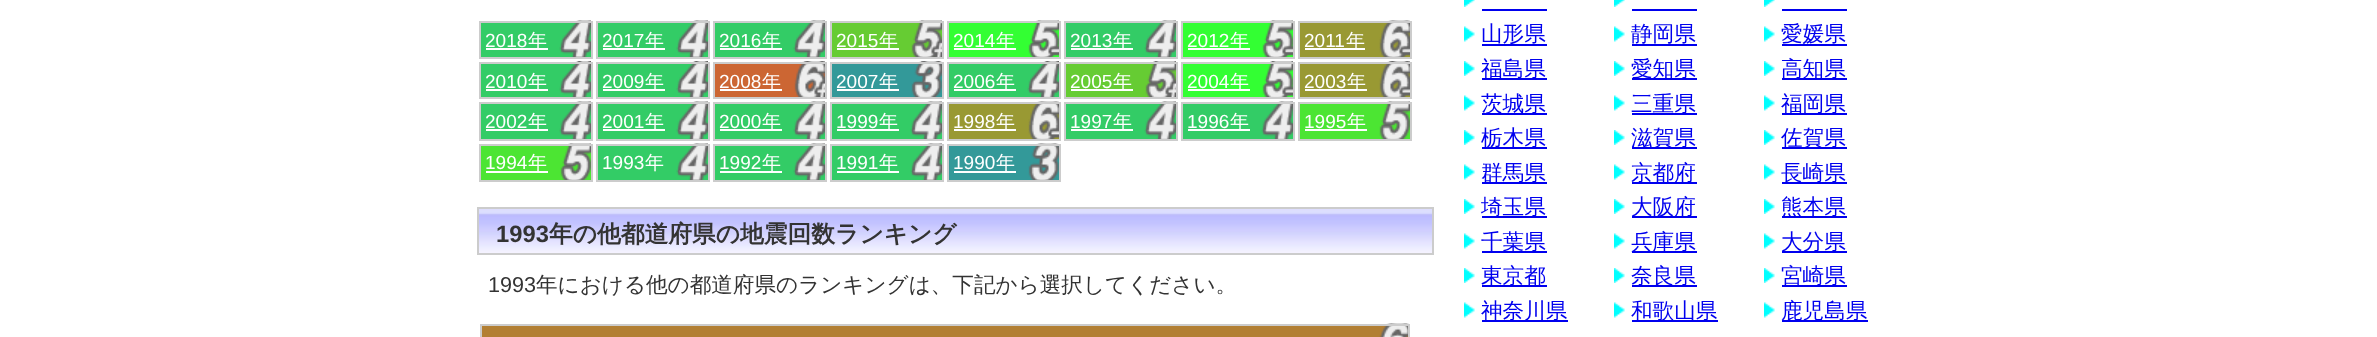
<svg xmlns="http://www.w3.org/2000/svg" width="2377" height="337">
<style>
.a{font:19px Liberation Sans;fill:#fff}
.b{font:500 19px WenQuanYi Zen Hei;fill:#fff}
.c{font:bold 23.75px Liberation Sans;fill:#333}
.d{font:bold 23.75px WenQuanYi Zen Hei;fill:#333}
.e{font:21.6px Liberation Sans;fill:#333}
.f{font:500 21.6px WenQuanYi Zen Hei;fill:#333}
.g{font:500 21.6px WenQuanYi Zen Hei;fill:#00e}
</style>
<rect width="100%" height="100%" fill="#fff"/>
<path fill="#3c6" d="M481 23h110v34H481z"/>
<image href="1.png" x="559" y="20" width="32" height="37"/>
<path fill="none" stroke="#ccc" stroke-width="2" d="M480 22h112v36H480z"/>
<path fill="#fff" d="M486 48h62v2H486z"/>
<path fill="#3c6" d="M598 23h110v34H598z"/>
<image href="2.png" x="676" y="20" width="32" height="37"/>
<path fill="none" stroke="#ccc" stroke-width="2" d="M597 22h112v36H597z"/>
<path fill="#fff" d="M603 48h62v2H603z"/>
<path fill="#3c6" d="M715 23h110v34H715z"/>
<image href="2.png" x="793" y="20" width="32" height="37"/>
<path fill="none" stroke="#ccc" stroke-width="2" d="M714 22h112v36H714z"/>
<path fill="#fff" d="M720 48h62v2H720z"/>
<path fill="#6c3" d="M832 23h110v34H832z"/>
<image href="3.png" x="911" y="20" width="31" height="37"/>
<path fill="none" stroke="#ccc" stroke-width="2" d="M831 22h112v36H831z"/>
<path fill="#fff" d="M837 48h62v2H837z"/>
<path fill="#3f3" d="M949 23h110v34H949z"/>
<image href="4.png" x="1028" y="20" width="31" height="37"/>
<path fill="none" stroke="#ccc" stroke-width="2" d="M948 22h112v36H948z"/>
<path fill="#fff" d="M954 48h62v2H954z"/>
<path fill="#3c6" d="M1066 23h110v34H1066z"/>
<image href="1.png" x="1144" y="20" width="32" height="37"/>
<path fill="none" stroke="#ccc" stroke-width="2" d="M1065 22h112v36H1065z"/>
<path fill="#fff" d="M1071 48h62v2H1071z"/>
<path fill="#3f3" d="M1183 23h110v34H1183z"/>
<image href="5.png" x="1262" y="20" width="31" height="37"/>
<path fill="none" stroke="#ccc" stroke-width="2" d="M1182 22h112v36H1182z"/>
<path fill="#fff" d="M1188 48h62v2H1188z"/>
<path fill="#993" d="M1300 23h110v34H1300z"/>
<image href="6.png" x="1379" y="20" width="31" height="37"/>
<path fill="none" stroke="#ccc" stroke-width="2" d="M1299 22h112v36H1299z"/>
<path fill="#fff" d="M1305 48h60v2H1305z"/>
<path fill="#3c6" d="M481 64h110v33H481z"/>
<image href="7.png" x="559" y="61" width="32" height="36"/>
<path fill="none" stroke="#ccc" stroke-width="2" d="M480 63h112v35H480z"/>
<path fill="#fff" d="M486 89h62v2H486z"/>
<path fill="#3c6" d="M598 64h110v33H598z"/>
<image href="8.png" x="676" y="61" width="32" height="36"/>
<path fill="none" stroke="#ccc" stroke-width="2" d="M597 63h112v35H597z"/>
<path fill="#fff" d="M603 89h62v2H603z"/>
<path fill="#c63" d="M715 64h110v33H715z"/>
<image href="9.png" x="794" y="61" width="31" height="36"/>
<path fill="none" stroke="#ccc" stroke-width="2" d="M714 63h112v35H714z"/>
<path fill="#fff" d="M720 89h62v2H720z"/>
<path fill="#399" d="M832 64h110v33H832z"/>
<image href="10.png" x="911" y="61" width="31" height="36"/>
<path fill="none" stroke="#ccc" stroke-width="2" d="M831 63h112v35H831z"/>
<path fill="#fff" d="M837 89h62v2H837z"/>
<path fill="#3c6" d="M949 64h110v33H949z"/>
<image href="11.png" x="1027" y="61" width="32" height="36"/>
<path fill="none" stroke="#ccc" stroke-width="2" d="M948 63h112v35H948z"/>
<path fill="#fff" d="M954 89h62v2H954z"/>
<path fill="#6c3" d="M1066 64h110v33H1066z"/>
<image href="12.png" x="1145" y="61" width="31" height="36"/>
<path fill="none" stroke="#ccc" stroke-width="2" d="M1065 63h112v35H1065z"/>
<path fill="#fff" d="M1071 89h62v2H1071z"/>
<path fill="#3f3" d="M1183 64h110v33H1183z"/>
<image href="13.png" x="1262" y="61" width="31" height="36"/>
<path fill="none" stroke="#ccc" stroke-width="2" d="M1182 63h112v35H1182z"/>
<path fill="#fff" d="M1188 89h62v2H1188z"/>
<path fill="#993" d="M1300 64h110v33H1300z"/>
<image href="14.png" x="1379" y="61" width="31" height="36"/>
<path fill="none" stroke="#ccc" stroke-width="2" d="M1299 63h112v35H1299z"/>
<path fill="#fff" d="M1305 89h62v2H1305z"/>
<path fill="#3c6" d="M481 104h110v35H481z"/>
<image href="15.png" x="559" y="101" width="32" height="38"/>
<path fill="none" stroke="#ccc" stroke-width="2" d="M480 103h112v37H480z"/>
<path fill="#fff" d="M486 129h62v2H486z"/>
<path fill="#3c6" d="M598 104h110v35H598z"/>
<image href="16.png" x="676" y="101" width="32" height="38"/>
<path fill="none" stroke="#ccc" stroke-width="2" d="M597 103h112v37H597z"/>
<path fill="#fff" d="M603 129h62v2H603z"/>
<path fill="#3c6" d="M715 104h110v35H715z"/>
<image href="16.png" x="793" y="101" width="32" height="38"/>
<path fill="none" stroke="#ccc" stroke-width="2" d="M714 103h112v37H714z"/>
<path fill="#fff" d="M720 129h62v2H720z"/>
<path fill="#3c6" d="M832 104h110v35H832z"/>
<image href="16.png" x="910" y="101" width="32" height="38"/>
<path fill="none" stroke="#ccc" stroke-width="2" d="M831 103h112v37H831z"/>
<path fill="#fff" d="M837 129h62v2H837z"/>
<path fill="#993" d="M949 104h110v35H949z"/>
<image href="17.png" x="1028" y="101" width="31" height="38"/>
<path fill="none" stroke="#ccc" stroke-width="2" d="M948 103h112v37H948z"/>
<path fill="#fff" d="M954 129h62v2H954z"/>
<path fill="#3c6" d="M1066 104h110v35H1066z"/>
<image href="15.png" x="1144" y="101" width="32" height="38"/>
<path fill="none" stroke="#ccc" stroke-width="2" d="M1065 103h112v37H1065z"/>
<path fill="#fff" d="M1071 129h62v2H1071z"/>
<path fill="#3c6" d="M1183 104h110v35H1183z"/>
<image href="18.png" x="1261" y="101" width="32" height="38"/>
<path fill="none" stroke="#ccc" stroke-width="2" d="M1182 103h112v37H1182z"/>
<path fill="#fff" d="M1188 129h62v2H1188z"/>
<path fill="#4ce533" d="M1300 104h110v35H1300z"/>
<image href="19.png" x="1379" y="101" width="31" height="38"/>
<path fill="none" stroke="#ccc" stroke-width="2" d="M1299 103h112v37H1299z"/>
<path fill="#fff" d="M1305 129h62v2H1305z"/>
<path fill="#4ce533" d="M481 146h110v34H481z"/>
<image href="20.png" x="560" y="143" width="31" height="37"/>
<path fill="none" stroke="#ccc" stroke-width="2" d="M480 145h112v36H480z"/>
<path fill="#fff" d="M486 171h62v2H486z"/>
<path fill="#3c6" d="M598 146h110v34H598z"/>
<image href="2.png" x="676" y="143" width="32" height="37"/>
<path fill="none" stroke="#ccc" stroke-width="2" d="M597 145h112v36H597z"/>
<path fill="#3c6" d="M715 146h110v34H715z"/>
<image href="2.png" x="793" y="143" width="32" height="37"/>
<path fill="none" stroke="#ccc" stroke-width="2" d="M714 145h112v36H714z"/>
<path fill="#fff" d="M720 171h62v2H720z"/>
<path fill="#3c6" d="M832 146h110v34H832z"/>
<image href="2.png" x="910" y="143" width="32" height="37"/>
<path fill="none" stroke="#ccc" stroke-width="2" d="M831 145h112v36H831z"/>
<path fill="#fff" d="M837 171h62v2H837z"/>
<path fill="#399" d="M949 146h110v34H949z"/>
<image href="21.png" x="1028" y="143" width="31" height="37"/>
<path fill="none" stroke="#ccc" stroke-width="2" d="M948 145h112v36H948z"/>
<path fill="#fff" d="M954 171h62v2H954z"/>
<image href="22.png" x="479" y="209" width="953" height="44"/>
<path fill="none" stroke="#ccc" stroke-width="2" d="M478 208h955v46H478z"/>
<path fill="#b27f33" d="M482 326h926v11H482z"/>
<image href="23.png" x="1379" y="323" width="30" height="14"/>
<path fill="none" stroke="#ccc" stroke-width="2" d="M481 325h928v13H481z"/>
<image href="24.png" x="1464" y="0" width="11" height="7"/>
<path fill="#00e" d="M1482 9h65v2H1482z"/>
<image href="25.png" x="1464" y="26" width="11" height="16"/>
<path fill="#00e" d="M1482 44h65v2H1482z"/>
<image href="26.png" x="1464" y="61" width="11" height="15"/>
<path fill="#00e" d="M1482 78h65v2H1482z"/>
<image href="25.png" x="1464" y="95" width="11" height="16"/>
<path fill="#00e" d="M1482 113h65v2H1482z"/>
<image href="26.png" x="1464" y="130" width="11" height="15"/>
<path fill="#00e" d="M1482 147h65v2H1482z"/>
<image href="25.png" x="1464" y="164" width="11" height="16"/>
<path fill="#00e" d="M1482 182h65v2H1482z"/>
<image href="26.png" x="1464" y="199" width="11" height="15"/>
<path fill="#00e" d="M1482 216h65v2H1482z"/>
<image href="25.png" x="1464" y="233" width="11" height="16"/>
<path fill="#00e" d="M1482 251h65v2H1482z"/>
<image href="26.png" x="1464" y="268" width="11" height="15"/>
<path fill="#00e" d="M1482 285h65v2H1482z"/>
<image href="25.png" x="1464" y="302" width="11" height="16"/>
<path fill="#00e" d="M1482 320h86v2H1482z"/>
<image href="24.png" x="1614" y="0" width="11" height="7"/>
<path fill="#00e" d="M1632 9h65v2H1632z"/>
<image href="25.png" x="1614" y="26" width="11" height="16"/>
<path fill="#00e" d="M1632 44h65v2H1632z"/>
<image href="26.png" x="1614" y="61" width="11" height="15"/>
<path fill="#00e" d="M1632 78h65v2H1632z"/>
<image href="25.png" x="1614" y="95" width="11" height="16"/>
<path fill="#00e" d="M1632 113h65v2H1632z"/>
<image href="26.png" x="1614" y="130" width="11" height="15"/>
<path fill="#00e" d="M1632 147h65v2H1632z"/>
<image href="25.png" x="1614" y="164" width="11" height="16"/>
<path fill="#00e" d="M1632 182h65v2H1632z"/>
<image href="26.png" x="1614" y="199" width="11" height="15"/>
<path fill="#00e" d="M1632 216h65v2H1632z"/>
<image href="25.png" x="1614" y="233" width="11" height="16"/>
<path fill="#00e" d="M1632 251h65v2H1632z"/>
<image href="26.png" x="1614" y="268" width="11" height="15"/>
<path fill="#00e" d="M1632 285h65v2H1632z"/>
<image href="25.png" x="1614" y="302" width="11" height="16"/>
<path fill="#00e" d="M1632 320h86v2H1632z"/>
<image href="24.png" x="1764" y="0" width="11" height="7"/>
<path fill="#00e" d="M1782 9h65v2H1782z"/>
<image href="25.png" x="1764" y="26" width="11" height="16"/>
<path fill="#00e" d="M1782 44h65v2H1782z"/>
<image href="26.png" x="1764" y="61" width="11" height="15"/>
<path fill="#00e" d="M1782 78h65v2H1782z"/>
<image href="25.png" x="1764" y="95" width="11" height="16"/>
<path fill="#00e" d="M1782 113h65v2H1782z"/>
<image href="26.png" x="1764" y="130" width="11" height="15"/>
<path fill="#00e" d="M1782 147h65v2H1782z"/>
<image href="25.png" x="1764" y="164" width="11" height="16"/>
<path fill="#00e" d="M1782 182h65v2H1782z"/>
<image href="26.png" x="1764" y="199" width="11" height="15"/>
<path fill="#00e" d="M1782 216h65v2H1782z"/>
<image href="25.png" x="1764" y="233" width="11" height="16"/>
<path fill="#00e" d="M1782 251h65v2H1782z"/>
<image href="26.png" x="1764" y="268" width="11" height="15"/>
<path fill="#00e" d="M1782 285h65v2H1782z"/>
<image href="25.png" x="1764" y="302" width="11" height="16"/>
<path fill="#00e" d="M1782 320h86v2H1782z"/>
<text class="a" x="485" y="47">2018</text>
<text class="b" x="528" y="47">年</text>
<text class="a" x="602" y="47">2017</text>
<text class="b" x="645" y="47">年</text>
<text class="a" x="719" y="47">2016</text>
<text class="b" x="762" y="47">年</text>
<text class="a" x="836" y="47">2015</text>
<text class="b" x="879" y="47">年</text>
<text class="a" x="953" y="47">2014</text>
<text class="b" x="996" y="47">年</text>
<text class="a" x="1070" y="47">2013</text>
<text class="b" x="1113" y="47">年</text>
<text class="a" x="1187" y="47">2012</text>
<text class="b" x="1230" y="47">年</text>
<text class="a" x="1304" y="47">2011</text>
<text class="b" x="1346" y="47">年</text>
<text class="a" x="485" y="88">2010</text>
<text class="b" x="528" y="88">年</text>
<text class="a" x="602" y="88">2009</text>
<text class="b" x="645" y="88">年</text>
<text class="a" x="719" y="88">2008</text>
<text class="b" x="762" y="88">年</text>
<text class="a" x="836" y="88">2007</text>
<text class="b" x="879" y="88">年</text>
<text class="a" x="953" y="88">2006</text>
<text class="b" x="996" y="88">年</text>
<text class="a" x="1070" y="88">2005</text>
<text class="b" x="1113" y="88">年</text>
<text class="a" x="1187" y="88">2004</text>
<text class="b" x="1230" y="88">年</text>
<text class="a" x="1304" y="88">2003</text>
<text class="b" x="1347" y="88">年</text>
<text class="a" x="485" y="128">2002</text>
<text class="b" x="528" y="128">年</text>
<text class="a" x="602" y="128">2001</text>
<text class="b" x="645" y="128">年</text>
<text class="a" x="719" y="128">2000</text>
<text class="b" x="762" y="128">年</text>
<text class="a" x="836" y="128">1999</text>
<text class="b" x="879" y="128">年</text>
<text class="a" x="953" y="128">1998</text>
<text class="b" x="996" y="128">年</text>
<text class="a" x="1070" y="128">1997</text>
<text class="b" x="1113" y="128">年</text>
<text class="a" x="1187" y="128">1996</text>
<text class="b" x="1230" y="128">年</text>
<text class="a" x="1304" y="128">1995</text>
<text class="b" x="1347" y="128">年</text>
<text class="a" x="485" y="169">1994</text>
<text class="b" x="528" y="169">年</text>
<text class="a" x="602" y="169">1993</text>
<text class="b" x="645" y="169">年</text>
<text class="a" x="719" y="169">1992</text>
<text class="b" x="762" y="169">年</text>
<text class="a" x="836" y="169">1991</text>
<text class="b" x="879" y="169">年</text>
<text class="a" x="953" y="169">1990</text>
<text class="b" x="996" y="169">年</text>
<text class="c" x="496" y="242">1993</text>
<text class="d" x="549" y="242">年の他都道府県の地震回数ランキング</text>
<text class="e" x="488" y="292">1993</text>
<text class="f" x="536" y="292">年における他の都道府県のランキングは、下記から選択してください。</text>
<text class="g" x="1481" y="41">山形県</text>
<text class="g" x="1481" y="76">福島県</text>
<text class="g" x="1481" y="111">茨城県</text>
<text class="g" x="1481" y="145">栃木県</text>
<text class="g" x="1481" y="180">群馬県</text>
<text class="g" x="1481" y="214">埼玉県</text>
<text class="g" x="1481" y="249">千葉県</text>
<text class="g" x="1481" y="283">東京都</text>
<text class="g" x="1481" y="318">神奈川県</text>
<text class="g" x="1631" y="41">静岡県</text>
<text class="g" x="1631" y="76">愛知県</text>
<text class="g" x="1631" y="111">三重県</text>
<text class="g" x="1631" y="145">滋賀県</text>
<text class="g" x="1631" y="180">京都府</text>
<text class="g" x="1631" y="214">大阪府</text>
<text class="g" x="1631" y="249">兵庫県</text>
<text class="g" x="1631" y="283">奈良県</text>
<text class="g" x="1631" y="318">和歌山県</text>
<text class="g" x="1781" y="41">愛媛県</text>
<text class="g" x="1781" y="76">高知県</text>
<text class="g" x="1781" y="111">福岡県</text>
<text class="g" x="1781" y="145">佐賀県</text>
<text class="g" x="1781" y="180">長崎県</text>
<text class="g" x="1781" y="214">熊本県</text>
<text class="g" x="1781" y="249">大分県</text>
<text class="g" x="1781" y="283">宮崎県</text>
<text class="g" x="1781" y="318">鹿児島県</text>
</svg>
